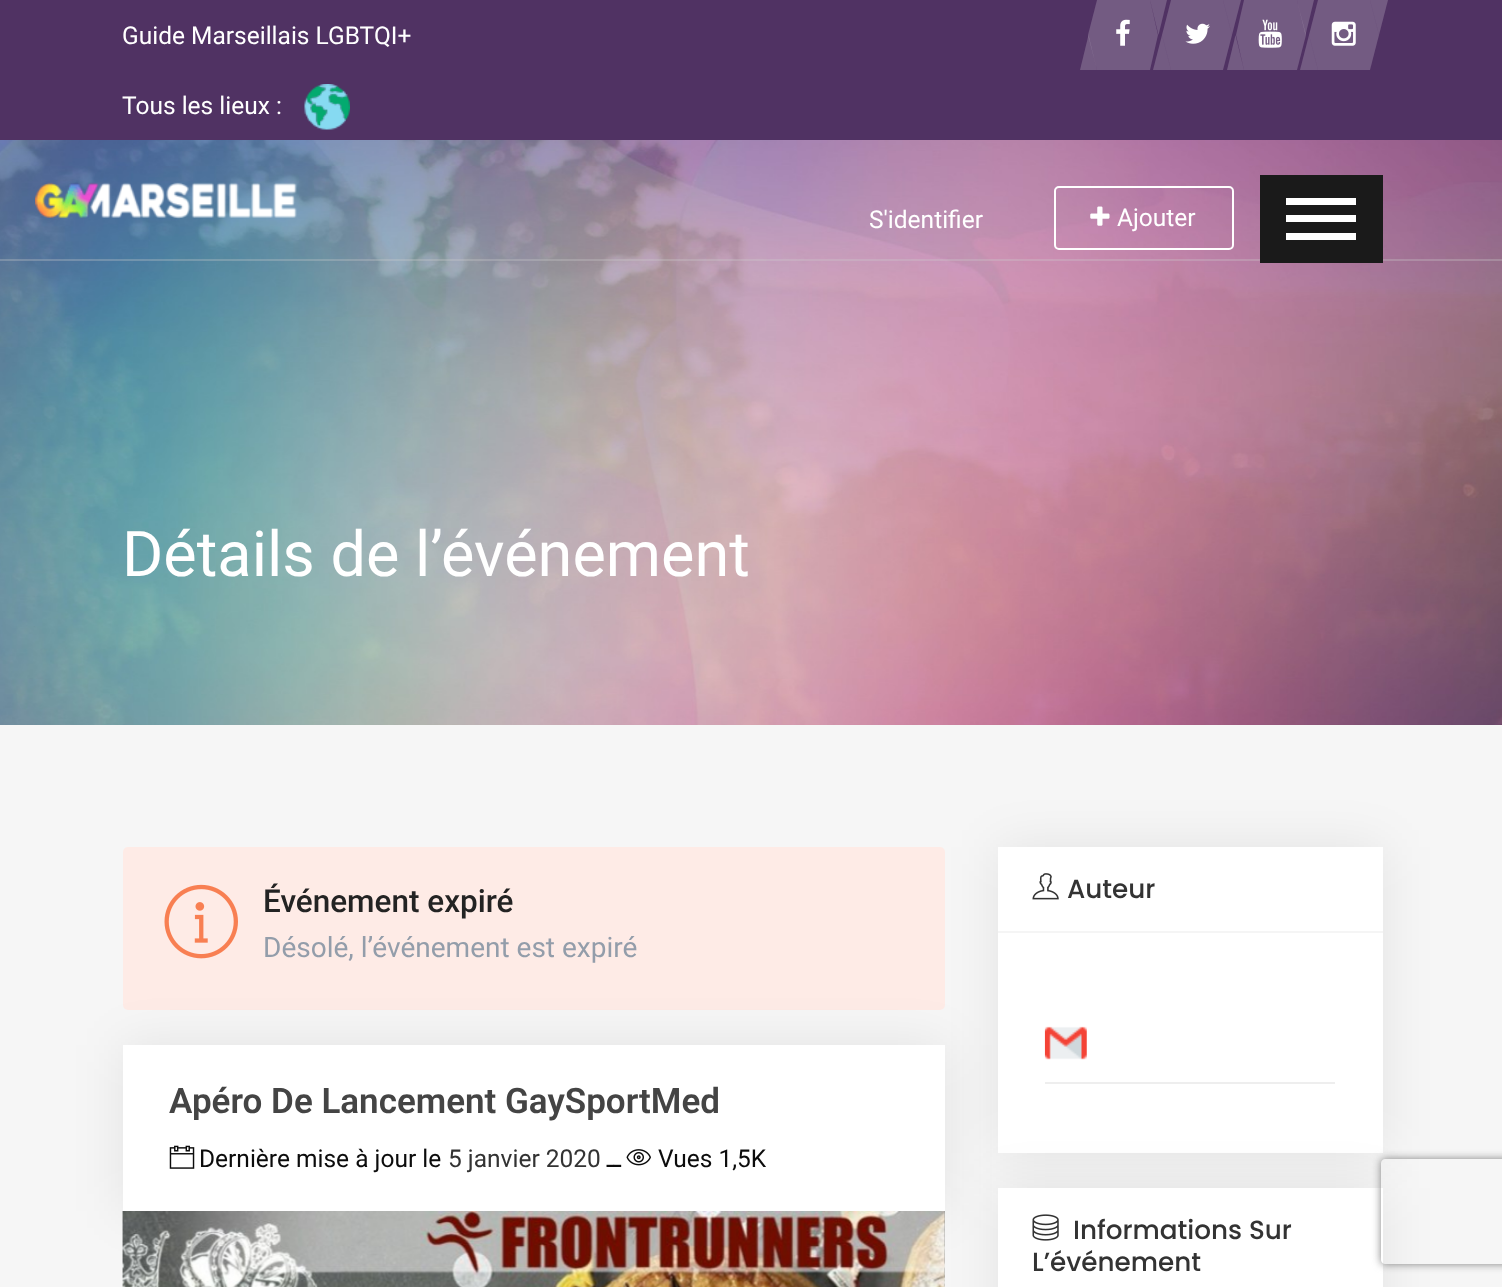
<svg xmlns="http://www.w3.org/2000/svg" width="1502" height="1287">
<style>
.a{font:24.5px Roboto;fill:#fff}
.b{font:63px Roboto;fill:#fff}
.c{font:500 31.5px Roboto;fill:#232323}
.d{font:28px Roboto;fill:#939daa}
.e{font:600 35px Roboto;fill:#444}
.f{font:24.5px Roboto;fill:#0c0c0c}
.g{font:24.5px Roboto;fill:#333}
.h{font:24.5px DejaVu Sans;direction:rtl;fill:#0c0c0c}
.i{font:500 26.25px Poppins;fill:#333}
</style>
<defs>
<clipPath id="clip1"><path d="M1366 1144h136v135h-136zm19 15h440c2 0 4 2 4 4v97c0 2-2 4-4 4h-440c-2 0-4-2-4-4v-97c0-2 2-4 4-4z" clip-rule="evenodd"/></clipPath>
</defs>
<rect width="100%" height="100%" fill="#f6f6f6"/>
<path fill="#503263" d="M0 0h1502v140H0z"/>
<image href="1.png" x="304" y="84" width="46" height="46"/>
<path fill="#735b82" d="M1097 0h53v70H1097z"/>
<path fill="#735b82" d="M1097 0v70l-9-35z"/>
<path fill="#ffffff33" d="M1097 70h-17l8.5-35z"/>
<image href="2.png" x="1116" y="19" width="14" height="27"/>
<path fill="#735b82" d="M1150 0h17l-8.5 35z"/>
<path fill="#ffffff33" d="M1150 70v-70l8 35z"/>
<path fill="#735b82" d="M1171 0h52v70H1171z"/>
<path fill="#735b82" d="M1171 0v70l-9-35z"/>
<path fill="#ffffff33" d="M1171 70h-18l9-35z"/>
<image href="3.png" x="1185" y="23" width="25" height="21"/>
<path fill="#735b82" d="M1223 0h18l-9 35z"/>
<path fill="#ffffff33" d="M1223 70v-70l9 35z"/>
<path fill="#735b82" d="M1244 0h53v70H1244z"/>
<path fill="#735b82" d="M1244 0v70l-8-35z"/>
<path fill="#ffffff33" d="M1244 70h-17l8.5-35z"/>
<image href="4.png" x="1258" y="19" width="24" height="29"/>
<path fill="#735b82" d="M1297 0h17l-8.5 35z"/>
<path fill="#ffffff33" d="M1297 70v-70l9 35z"/>
<path fill="#735b82" d="M1318 0h52v70H1318z"/>
<path fill="#735b82" d="M1318 0v70l-9-35z"/>
<path fill="#ffffff33" d="M1318 70h-18l9-35z"/>
<image href="5.png" x="1331" y="21" width="25" height="25"/>
<path fill="#735b82" d="M1370 0h18l-9 35z"/>
<path fill="#ffffff33" d="M1370 70v-70l9 35z"/>
<image href="8.png" x="0" y="140" width="1502" height="585"/>
<path fill="#cccccc4d" d="M0 259h1502v2H0z"/>
<image href="6.png" x="35" y="182" width="262" height="37"/>
<path fill="#1a1a1a" d="M1260 175h123v88H1260z"/>
<path fill="#fff" d="M1286 198h70v7H1286z"/>
<path fill="#fff" d="M1286 215h70v7H1286z"/>
<path fill="#fff" d="M1286 233h70v7H1286z"/>
<rect fill="none" stroke="#fff" stroke-width="2" x="1055" y="187" width="178" height="62" rx="4"/>
<image href="7.png" x="1090" y="206" width="20" height="20"/>
<rect fill="#feebe6" x="123" y="847" width="822" height="163" rx="5"/>
<image href="9.png" x="164" y="884" width="74" height="75"/>
<path fill="#00000014" filter="blur(26px)" d="M123 1045h822v166H123z"/>
<path fill="#fff" d="M123 1045h822v166H123z"/>
<image href="10.png" x="169" y="1145" width="26" height="24"/>
<image href="11.png" x="626" y="1149" width="25" height="17"/>
<path fill="#00000014" filter="blur(26px)" d="M998 847h385v306H998z"/>
<path fill="#fff" d="M998 933h385v220H998z"/>
<path fill="#00000014" filter="blur(26px)" d="M998 1188h385v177H998z"/>
<image href="12.png" x="122" y="1211" width="823" height="76"/>
<image href="13.png" x="944" y="1211" width="1" height="76"/>
<path fill="#fff" d="M998 847h385v84H998z"/>
<path fill="#f5f5f5" d="M998 931h385v2H998z"/>
<image href="14.png" x="1032" y="873" width="27" height="27"/>
<path fill="#eee" d="M1045 1082h290v2H1045z"/>
<image href="15.png" x="1044" y="1026" width="43" height="34"/>
<path fill="#fff" d="M998 1188h385v99H998z"/>
<image href="16.png" x="1032" y="1214" width="27" height="27"/>
<g clip-path="url(#clip1)">
<rect fill="#808080" filter="blur(4.5px)" x="1381" y="1159" width="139" height="105" rx="4"/>
</g>
<text class="a" x="122" y="44">Guide Marseillais LGBTQI+</text>
<text class="a" x="122" y="114">Tous les lieux :</text>
<text class="a" x="869" y="228">S'identifier</text>
<text class="a" x="1117" y="226">Ajouter</text>
<text class="b" x="122" y="576">Détails de l’événement</text>
<text class="c" x="263" y="912">Événement expiré</text>
<text class="d" x="263" y="957">Désolé, l’événement est expiré</text>
<text class="e" x="169" y="1113">Apéro De Lancement GaySportMed</text>
<text class="f" x="199" y="1167">Dernière mise à jour le</text>
<text class="g" x="448" y="1167">5 janvier 2020</text>
<text class="h" x="621" y="1167">ــ</text>
<text class="f" x="658" y="1167">Vues 1,5K</text>
<text class="i" x="1067" y="898">Auteur</text>
<text class="i" x="1073" y="1239">Informations Sur</text>
<text class="i" x="1032" y="1271">L’événement</text>
</svg>
